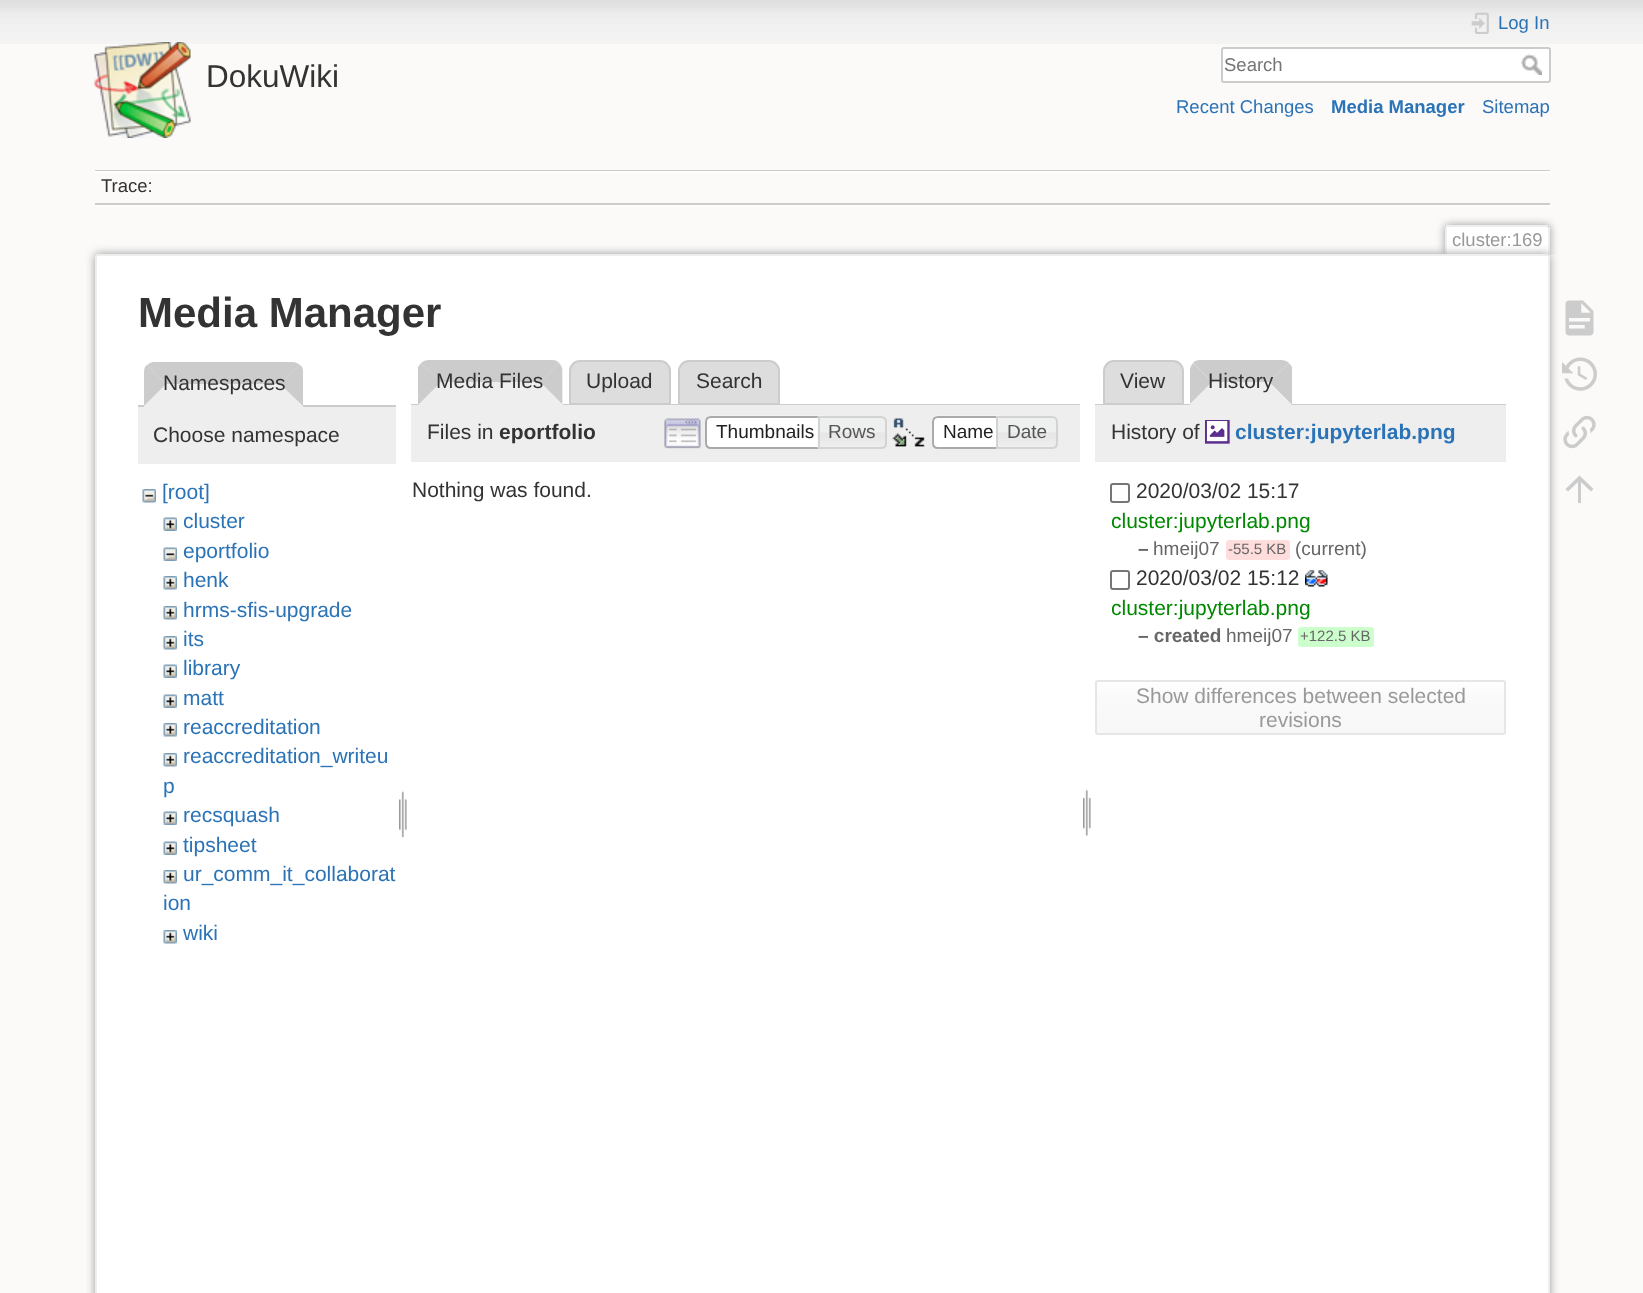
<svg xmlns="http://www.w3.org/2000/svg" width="1643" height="1293">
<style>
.a{font:31.5px Liberation Sans;fill:#333}
.b{font:18.5px Liberation Sans;fill:#2b73b7}
.c{font:18.5px Liberation Sans;fill:#757575}
.d{font:bold 18.5px Liberation Sans;fill:#2b73b7}
.e{font:18.5px Liberation Sans;fill:#333}
.f{font:18.5px Liberation Sans;fill:#999}
.g{font:bold 42px Liberation Sans;fill:#333}
.h{font:21px Liberation Sans;fill:#333}
.i{font:21px Liberation Sans;fill:#2b73b7}
.j{font:bold 21px Liberation Sans;fill:#333}
.k{font:19px Liberation Sans;fill:#212121}
.l{font:19px Liberation Sans;fill:#555}
.m{font:bold 21px Liberation Sans;fill:#2b73b7}
.n{font:21px Liberation Sans;fill:#080}
.o{font:bold 19px Liberation Sans;fill:#666}
.p{font:19px Liberation Sans;fill:#666}
.q{font:15px Liberation Sans;fill:#666}
.r{font:21px Liberation Sans;fill:#999}
</style>
<defs>
<clipPath id="clip1"><path d="M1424 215h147v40H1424z"/></clipPath>
<clipPath id="clip2"><rect x="1095" y="680" width="411" height="55" rx="3"/></clipPath>
<linearGradient id="g1" gradientUnits="userSpaceOnUse" x1="1301" y1="681" x2="1301" y2="734"><stop offset="0" stop-color="#fff"/><stop offset="0.3" stop-color="#fafafa"/><stop offset="0.99" stop-color="#f7f7f7"/><stop offset="0.99" stop-color="#e6e6e6"/></linearGradient>
</defs>
<rect width="100%" height="100%" fill="#fbfaf9"/>
<image href="1.png" x="0" y="0" width="1643" height="44"/>
<image href="2.png" x="94" y="42" width="97" height="96"/>
<image href="3.png" x="1471" y="12" width="18" height="22"/>
<rect fill="#fff" stroke="#ccc" stroke-width="2" x="1222" y="48" width="328" height="34" rx="2"/>
<image href="4.png" x="1521" y="54" width="21" height="21"/>
<path fill="#ccc" d="M95 170h1455v1H95z"/>
<path fill="#fff" d="M95 205h1455v1H95z"/>
<path fill="#fff" d="M95 171h1455v2H95z"/>
<path fill="#ccc" d="M95 203h1455v2H95z"/>
<g clip-path="url(#clip1)">
<rect fill="#999" filter="blur(4.5px)" x="1445" y="225" width="105" height="30" rx="3"/>
</g>
<path fill="#fff" d="M1447.5 227h99c1 0 1.5 .5 1.5 1.5v26.5h-102v-26.5c0-1 .5-1.5 1.5-1.5z"/>
<path fill="#eee" d="M1446 225h102v2H1446z"/>
<path fill="#eee" d="M1548 227h2v28H1548z"/>
<path fill="#eee" d="M1445 227h2v28H1445z"/>
<rect fill="#999" filter="blur(5px)" x="95" y="254" width="1455" height="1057" rx="3"/>
<rect fill="#fff" stroke="#eee" stroke-width="2" x="96" y="255" width="1453" height="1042" rx="2"/>
<path fill="#ccc" d="M138 405h258v2H138z"/>
<path fill="#eee" d="M155 362h137c6 0 11 5 11 11v34h-159v-34c0-6 5-11 11-11z"/>
<path fill="#ccc" d="M154 362c-2 0-5 1-7 3l19 19h114l20-19c-2-2-5-3-8-3z"/>
<path fill="#ccc" d="M303 406l-23-22l20-19c2 1 3 4 3 7z"/>
<path fill="#eee" d="M302 406l-22-22h-114l-22 22z"/>
<path fill="#ccc" d="M144 372c0-3 1-6 3-7l19 19l-22 22z"/>
<path fill="#eee" d="M138 407h258v57H138z"/>
<image href="5.png" x="142" y="489" width="14" height="14"/>
<image href="6.png" x="163" y="517" width="14" height="14"/>
<image href="7.png" x="163" y="547" width="14" height="14"/>
<image href="8.png" x="163" y="576" width="14" height="14"/>
<image href="8.png" x="163" y="606" width="14" height="14"/>
<image href="8.png" x="163" y="636" width="14" height="14"/>
<image href="6.png" x="163" y="664" width="14" height="14"/>
<image href="6.png" x="163" y="694" width="14" height="14"/>
<image href="8.png" x="163" y="723" width="14" height="14"/>
<image href="8.png" x="163" y="753" width="14" height="14"/>
<image href="6.png" x="163" y="811" width="14" height="14"/>
<image href="6.png" x="163" y="841" width="14" height="14"/>
<image href="8.png" x="163" y="870" width="14" height="14"/>
<image href="8.png" x="163" y="930" width="14" height="14"/>
<image href="9.png" x="399" y="790" width="8" height="48"/>
<path fill="#ddd" stroke="#ccc" stroke-width="2" d="M580 361h80c5.5 0 10 4.5 10 10v33h-100v-33c0-5.5 4.5-10 10-10z"/>
<path fill="#ddd" stroke="#ccc" stroke-width="2" d="M689 361h80c5.5 0 10 4.5 10 10v33h-100v-33c0-5.5 4.5-10 10-10z"/>
<path fill="#ccc" d="M411 404h669v1H411z"/>
<path fill="#eee" d="M430 360h122c6 0 11 5 11 11v34h-144v-34c0-6 5-11 11-11z"/>
<path fill="#ccc" d="M429 360h123c3 0 6 1 7 3l-19 19h-99l-20-19c2-2 5-3 8-3z"/>
<path fill="#ccc" d="M559 363l-19 19l22 22v-34c0-2-1-5-3-7z"/>
<path fill="#eee" d="M562 404l-22-22h-99l-23 23h144z"/>
<path fill="#ccc" d="M418 405l23-23l-20-19l-3 4z"/>
<path fill="#eee" d="M411 405h669v57H411z"/>
<image href="10.png" x="664" y="418" width="37" height="31"/>
<path fill="#fff" d="M711 416h114v33h-114c-3.5 0-6-2.5-6-6v-21c0-3.5 2.5-6 6-6z"/>
<image href="11.png" x="705" y="415" width="120" height="5"/>
<path fill="none" stroke="#aaa" stroke-width="2" d="M711 417h113v31h-113c-3 0-5-2-5-5v-21c0-3 2-5 5-5z"/>
<image href="12.png" x="817" y="416" width="69" height="33"/>
<path fill="none" stroke="#d3d3d3" stroke-width="2" d="M819 417h62c3 0 5 2 5 5v21c0 3-2 5-5 5h-62z"/>
<image href="13.png" x="892" y="418" width="33" height="29"/>
<path fill="#fff" d="M938 416h66v33h-66c-3.5 0-6-2.5-6-6v-21c0-3.5 2.5-6 6-6z"/>
<image href="14.png" x="931" y="415" width="72" height="31"/>
<path fill="none" stroke="#aaa" stroke-width="2" d="M938 417h65v31h-65c-3 0-5-2-5-5v-21c0-3 2-5 5-5z"/>
<image href="15.png" x="998" y="416" width="59" height="32"/>
<path fill="none" stroke="#d3d3d3" stroke-width="2" d="M997 417h55c3 0 5 2 5 5v21c0 3-2 5-5 5h-55z"/>
<image href="16.png" x="1083" y="789" width="8" height="47"/>
<path fill="#ddd" stroke="#ccc" stroke-width="2" d="M1114 361h59c5.5 0 10 4.5 10 10v33h-79v-33c0-5.5 4.5-10 10-10z"/>
<path fill="#ccc" d="M1200 360h81c3 0 6 1 8 3l-20 19h-57l-19-19c1-2 4-3 7-3z"/>
<path fill="#ccc" d="M1095 404h411v1H1095z"/>
<path fill="#ccc" d="M1289 363l-20 19l23 23v-38z"/>
<path fill="#eee" d="M1292 405l-23-23h-57l-22 22v1z"/>
<path fill="#ccc" d="M1193 363c-2 2-3 5-3 7v34l22-22z"/>
<path fill="#eee" d="M1095 405h411v57H1095z"/>
<image href="17.png" x="1205" y="420" width="25" height="24"/>
<rect fill="none" stroke="#767676" stroke-width="2" x="1111" y="484" width="18" height="18" rx="2"/>
<rect fill="#fdd" x="1226" y="540" width="64" height="20" rx="3"/>
<rect fill="none" stroke="#767676" stroke-width="2" x="1111" y="571" width="18" height="18" rx="2"/>
<image href="18.png" x="1305" y="570" width="23" height="17"/>
<rect fill="#cfc" x="1298" y="627" width="76" height="20" rx="3"/>
<g clip-path="url(#clip2)">
<path fill="url(#g1)" d="M1095 681h411v53H1095z"/>
</g>
<rect fill="none" stroke="#e6e6e6" stroke-width="2" x="1096" y="681" width="409" height="53" rx="2"/>
<image href="19.png" x="1565" y="300" width="29" height="36"/>
<image href="20.png" x="1562" y="357" width="35" height="34"/>
<image href="21.png" x="1563" y="415" width="33" height="34"/>
<path fill="#ccc" d="M1581 503h-3v-21l-10 9.5l-2.5-2.5l14-13.5l14 13.5l-2.5 2.5l-10-9.5z"/>
<text class="a" x="206" y="87">DokuWiki</text>
<text class="b" x="1498" y="29">Log In</text>
<text class="c" x="1224" y="71">Search</text>
<text class="b" x="1176" y="113">Recent Changes</text>
<text class="d" x="1331" y="113">Media Manager</text>
<text class="b" x="1482" y="113">Sitemap</text>
<text class="e" x="101" y="192">Trace:</text>
<text class="f" x="1452" y="246">cluster:169</text>
<text class="g" x="138" y="327">Media Manager</text>
<text class="h" x="163" y="390">Namespaces</text>
<text class="h" x="153" y="442">Choose namespace</text>
<text class="i" x="162" y="499">[root]</text>
<text class="i" x="183" y="528">cluster</text>
<text class="i" x="183" y="558">eportfolio</text>
<text class="i" x="183" y="587">henk</text>
<text class="i" x="183" y="617">hrms-sfis-upgrade</text>
<text class="i" x="183" y="646">its</text>
<text class="i" x="183" y="675">library</text>
<text class="i" x="183" y="705">matt</text>
<text class="i" x="183" y="734">reaccreditation</text>
<text class="i" x="183" y="763">reaccreditation_writeu</text>
<text class="i" x="163" y="793">p</text>
<text class="i" x="183" y="822">recsquash</text>
<text class="i" x="183" y="852">tipsheet</text>
<text class="i" x="183" y="881">ur_comm_it_collaborat</text>
<text class="i" x="163" y="910">ion</text>
<text class="i" x="183" y="940">wiki</text>
<text class="h" x="436" y="388">Media Files</text>
<text class="h" x="586" y="388">Upload</text>
<text class="h" x="696" y="388">Search</text>
<text class="h" x="427" y="439">Files in</text>
<text class="j" x="499" y="439">eportfolio</text>
<text class="k" x="716" y="438">Thumbnails</text>
<text class="l" x="828" y="438">Rows</text>
<text class="k" x="943" y="438">Name</text>
<text class="l" x="1007" y="438">Date</text>
<text class="h" x="412" y="497">Nothing was found.</text>
<text class="h" x="1120" y="388">View</text>
<text class="h" x="1208" y="388">History</text>
<text class="h" x="1111" y="439">History of</text>
<text class="m" x="1235" y="439">cluster:jupyterlab.png</text>
<text class="h" x="1136" y="498">2020/03/02 15:17</text>
<text class="n" x="1111" y="528">cluster:jupyterlab.png</text>
<text class="o" x="1138" y="555">–</text>
<text class="p" x="1153" y="555">hmeij07</text>
<text class="q" x="1228" y="554">-55.5 KB</text>
<text class="p" x="1295" y="555">(current)</text>
<text class="h" x="1136" y="585">2020/03/02 15:12</text>
<text class="n" x="1111" y="615">cluster:jupyterlab.png</text>
<text class="o" x="1138" y="642">– created</text>
<text class="p" x="1226" y="642">hmeij07</text>
<text class="q" x="1300" y="641">+122.5 KB</text>
<text class="r" x="1136" y="703">Show differences between selected</text>
<text class="r" x="1259" y="727">revisions</text>
</svg>
